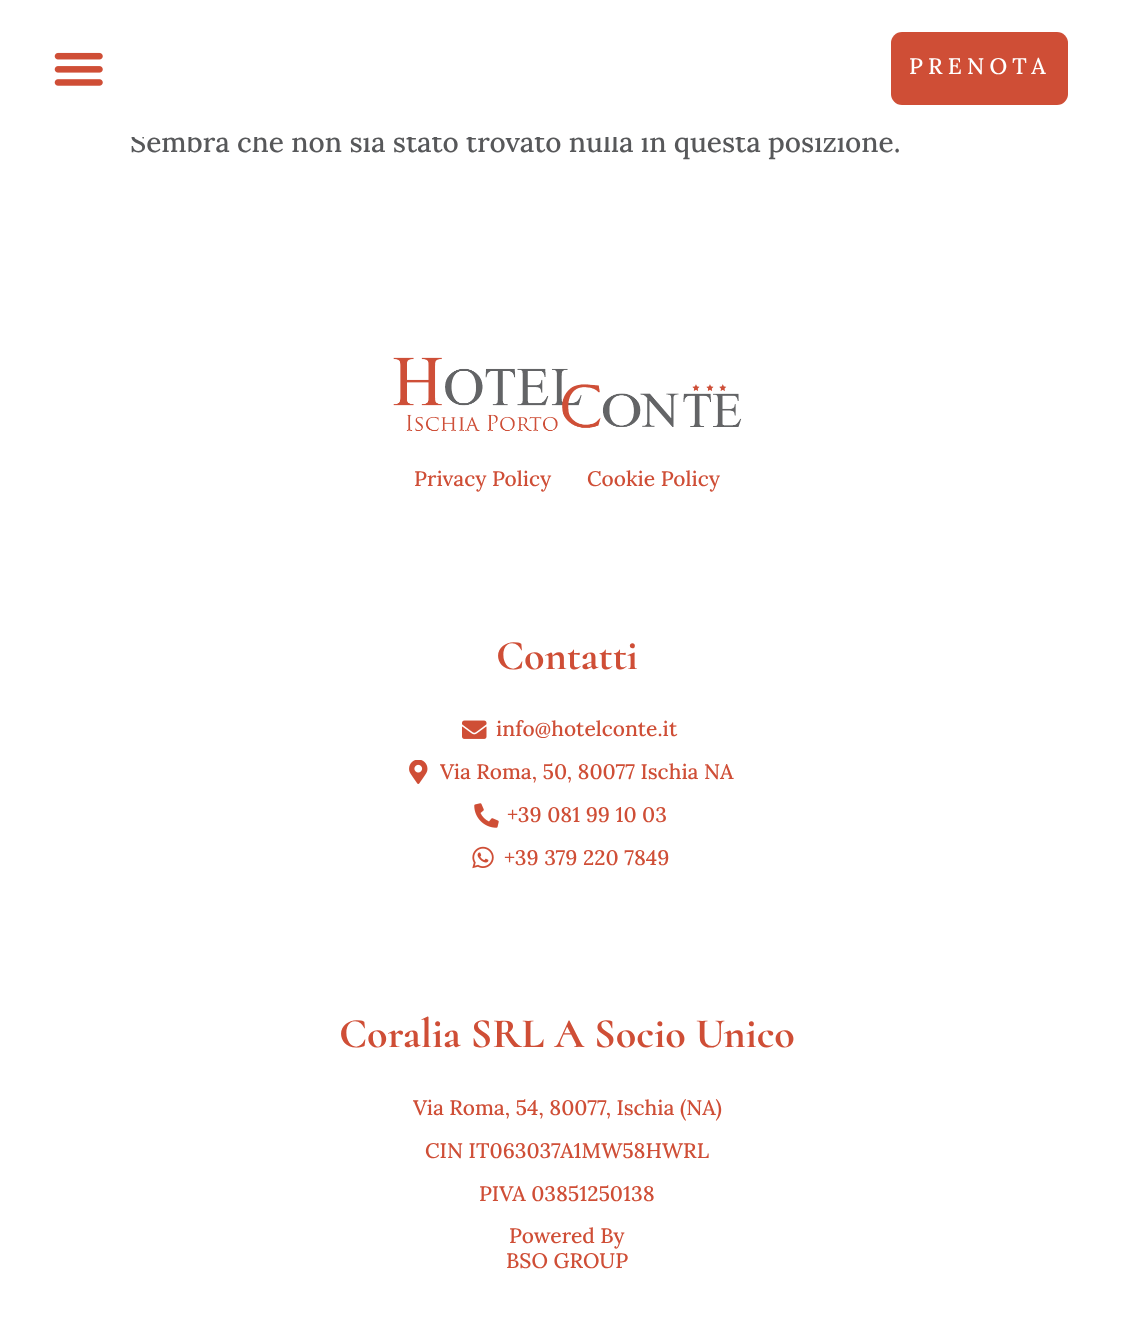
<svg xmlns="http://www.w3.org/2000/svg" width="1134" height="1333">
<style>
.a{font:500 22.5px Lora;letter-spacing:5.25px;fill:#fff}
.b{font:500 28px Lora;fill:#57585a}
.c{font:500 21px Lora;fill:#cf4e36}
.d{font:bold 42px Cormorant;fill:#cf4e36}
</style>
<rect width="100%" height="100%" fill="#fff"/>
<image href="1.png" x="54" y="52" width="49" height="34"/>
<rect fill="#cf4e36" x="891" y="32" width="177" height="73" rx="11"/>
<image href="2.png" x="393" y="357" width="349" height="74"/>
<image href="3.png" x="462" y="720" width="25" height="19"/>
<image href="4.png" x="409" y="760" width="19" height="24"/>
<image href="5.png" x="474" y="803" width="25" height="25"/>
<image href="6.png" x="472" y="846" width="22" height="23"/>
<text class="a" x="909" y="74">PRENOTA</text>
<text class="b" x="130" y="152">Sembra che non sia stato trovato nulla in questa posizione.</text>
<path fill="#fff" d="M131 130h712v7H131z"/>
<text class="c" x="414" y="486">Privacy Policy</text>
<text class="c" x="587" y="486">Cookie Policy</text>
<text class="d" x="496" y="669">Contatti</text>
<text class="c" x="496" y="736">info@hotelconte.it</text>
<text class="c" x="440" y="779">Via Roma, 50, 80077 Ischia NA</text>
<text class="c" x="507" y="822">+39 081 99 10 03</text>
<text class="c" x="504" y="865">+39 379 220 7849</text>
<text class="d" x="339" y="1047">Coralia SRL A Socio Unico</text>
<text class="c" x="413" y="1115">Via Roma, 54, 80077, Ischia (NA)</text>
<text class="c" x="425" y="1158">CIN IT063037A1MW58HWRL</text>
<text class="c" x="479" y="1201">PIVA 03851250138</text>
<text class="c" x="509" y="1243">Powered By</text>
<text class="c" x="506" y="1268">BSO GROUP</text>
</svg>
